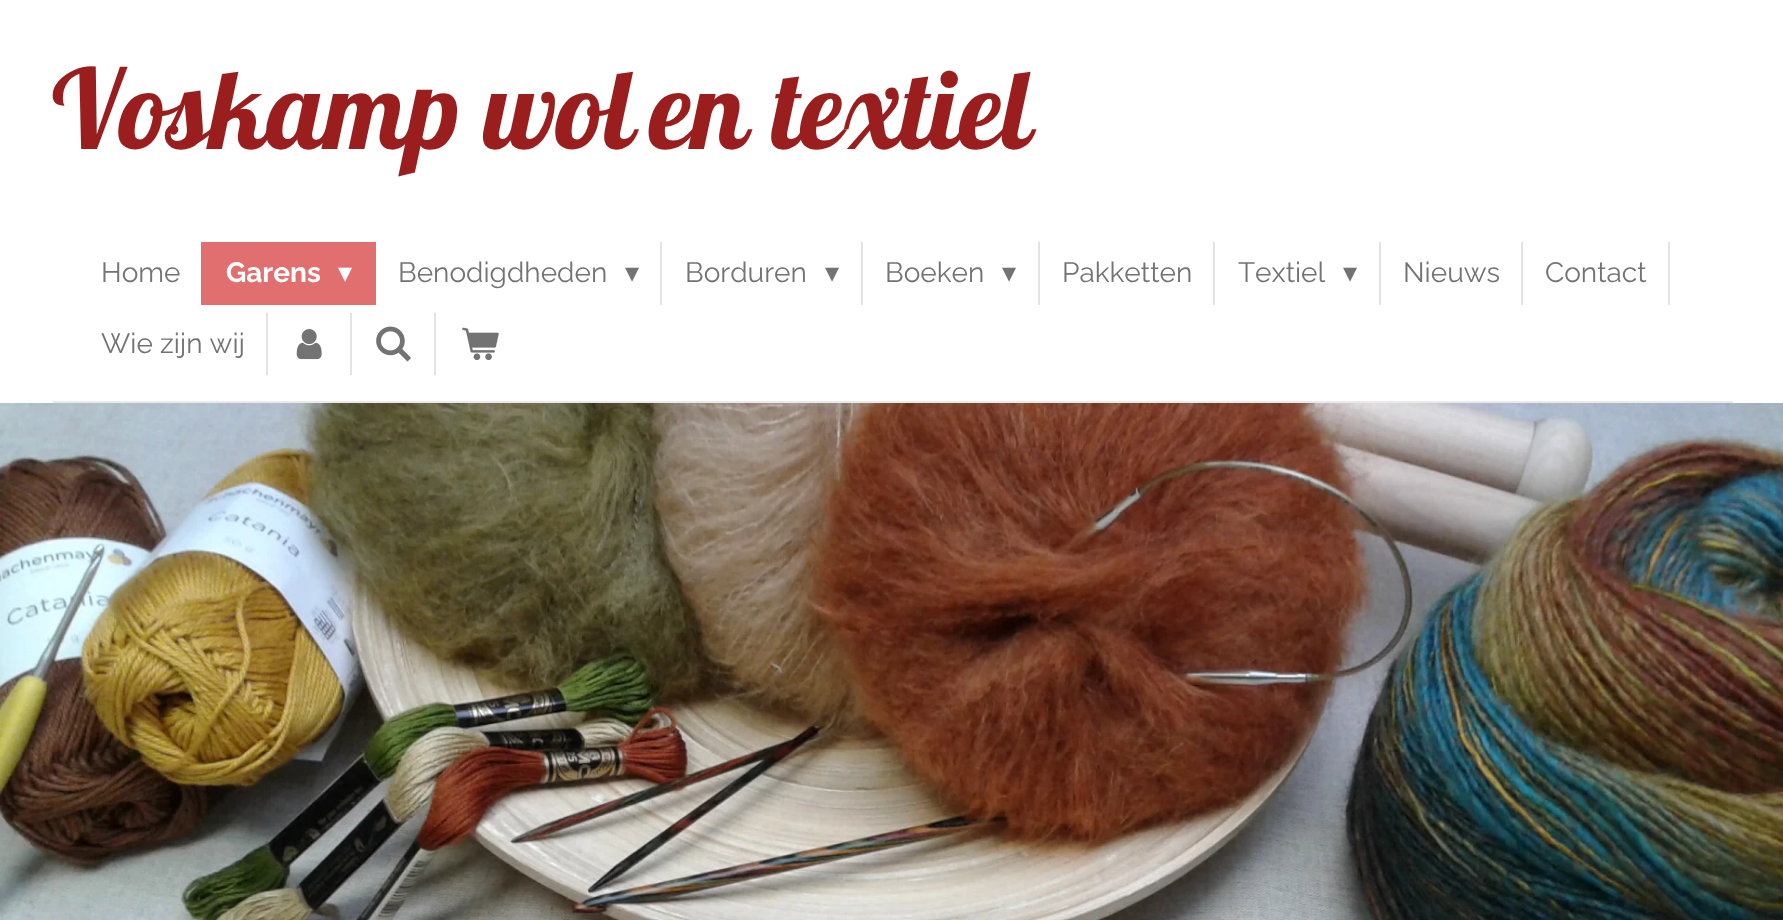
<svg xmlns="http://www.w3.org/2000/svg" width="1783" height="920">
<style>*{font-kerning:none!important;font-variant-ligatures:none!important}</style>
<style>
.a{font:110.25px Lobster;fill:#9a1e1e}
.b{font:28px Raleway;fill:#737373}
.c{font:bold 28px Raleway;fill:#fff}
.d{font:28px DejaVu Sans;fill:#fff}
.e{font:28px DejaVu Sans;fill:#737373}
</style>
<rect width="100%" height="100%" fill="#fff"/>
<path fill="#eaeaea" d="M53 401h1680v2H53z"/>
<path fill="#e26f6f" d="M201 242h175v63H201z"/>
<path fill="#e3e3e3" d="M660 242h2v63H660z"/>
<path fill="#e3e3e3" d="M861 242h2v63H861z"/>
<path fill="#e3e3e3" d="M1038 242h2v63H1038z"/>
<path fill="#e3e3e3" d="M1213 242h2v63H1213z"/>
<path fill="#e3e3e3" d="M1379 242h2v63H1379z"/>
<path fill="#e3e3e3" d="M1521 242h2v63H1521z"/>
<path fill="#e3e3e3" d="M1668 242h2v63H1668z"/>
<path fill="#e3e3e3" d="M266 313h2v62H266z"/>
<image href="1.png" x="296" y="329" width="26" height="31"/>
<path fill="#e3e3e3" d="M350 313h2v62H350z"/>
<image href="2.png" x="376" y="326" width="35" height="36"/>
<path fill="#e3e3e3" d="M434 313h2v62H434z"/>
<image href="3.png" x="462" y="327" width="37" height="34"/>
<image href="4.png" x="0" y="403" width="1783" height="517"/>
<text class="a" x="52" y="149">Voskamp wol</text>
<text class="a" x="650" y="149">en textiel</text>
<text class="b" x="101" y="282">Home</text>
<text class="c" x="226" y="282">Garens</text>
<text class="d" x="338" y="282">▾</text>
<text class="b" x="398" y="282">Benodigdheden</text>
<text class="e" x="625" y="282">▾</text>
<text class="b" x="685" y="282">Borduren</text>
<text class="e" x="825" y="282">▾</text>
<text class="b" x="885" y="282">Boeken</text>
<text class="e" x="1002" y="282">▾</text>
<text class="b" x="1062" y="282">Pakketten</text>
<text class="b" x="1238" y="282">Textiel</text>
<text class="e" x="1343" y="282">▾</text>
<text class="b" x="1403" y="282">Nieuws</text>
<text class="b" x="1545" y="282">Contact</text>
<text class="b" x="101" y="353">Wie zijn wij</text>
</svg>
